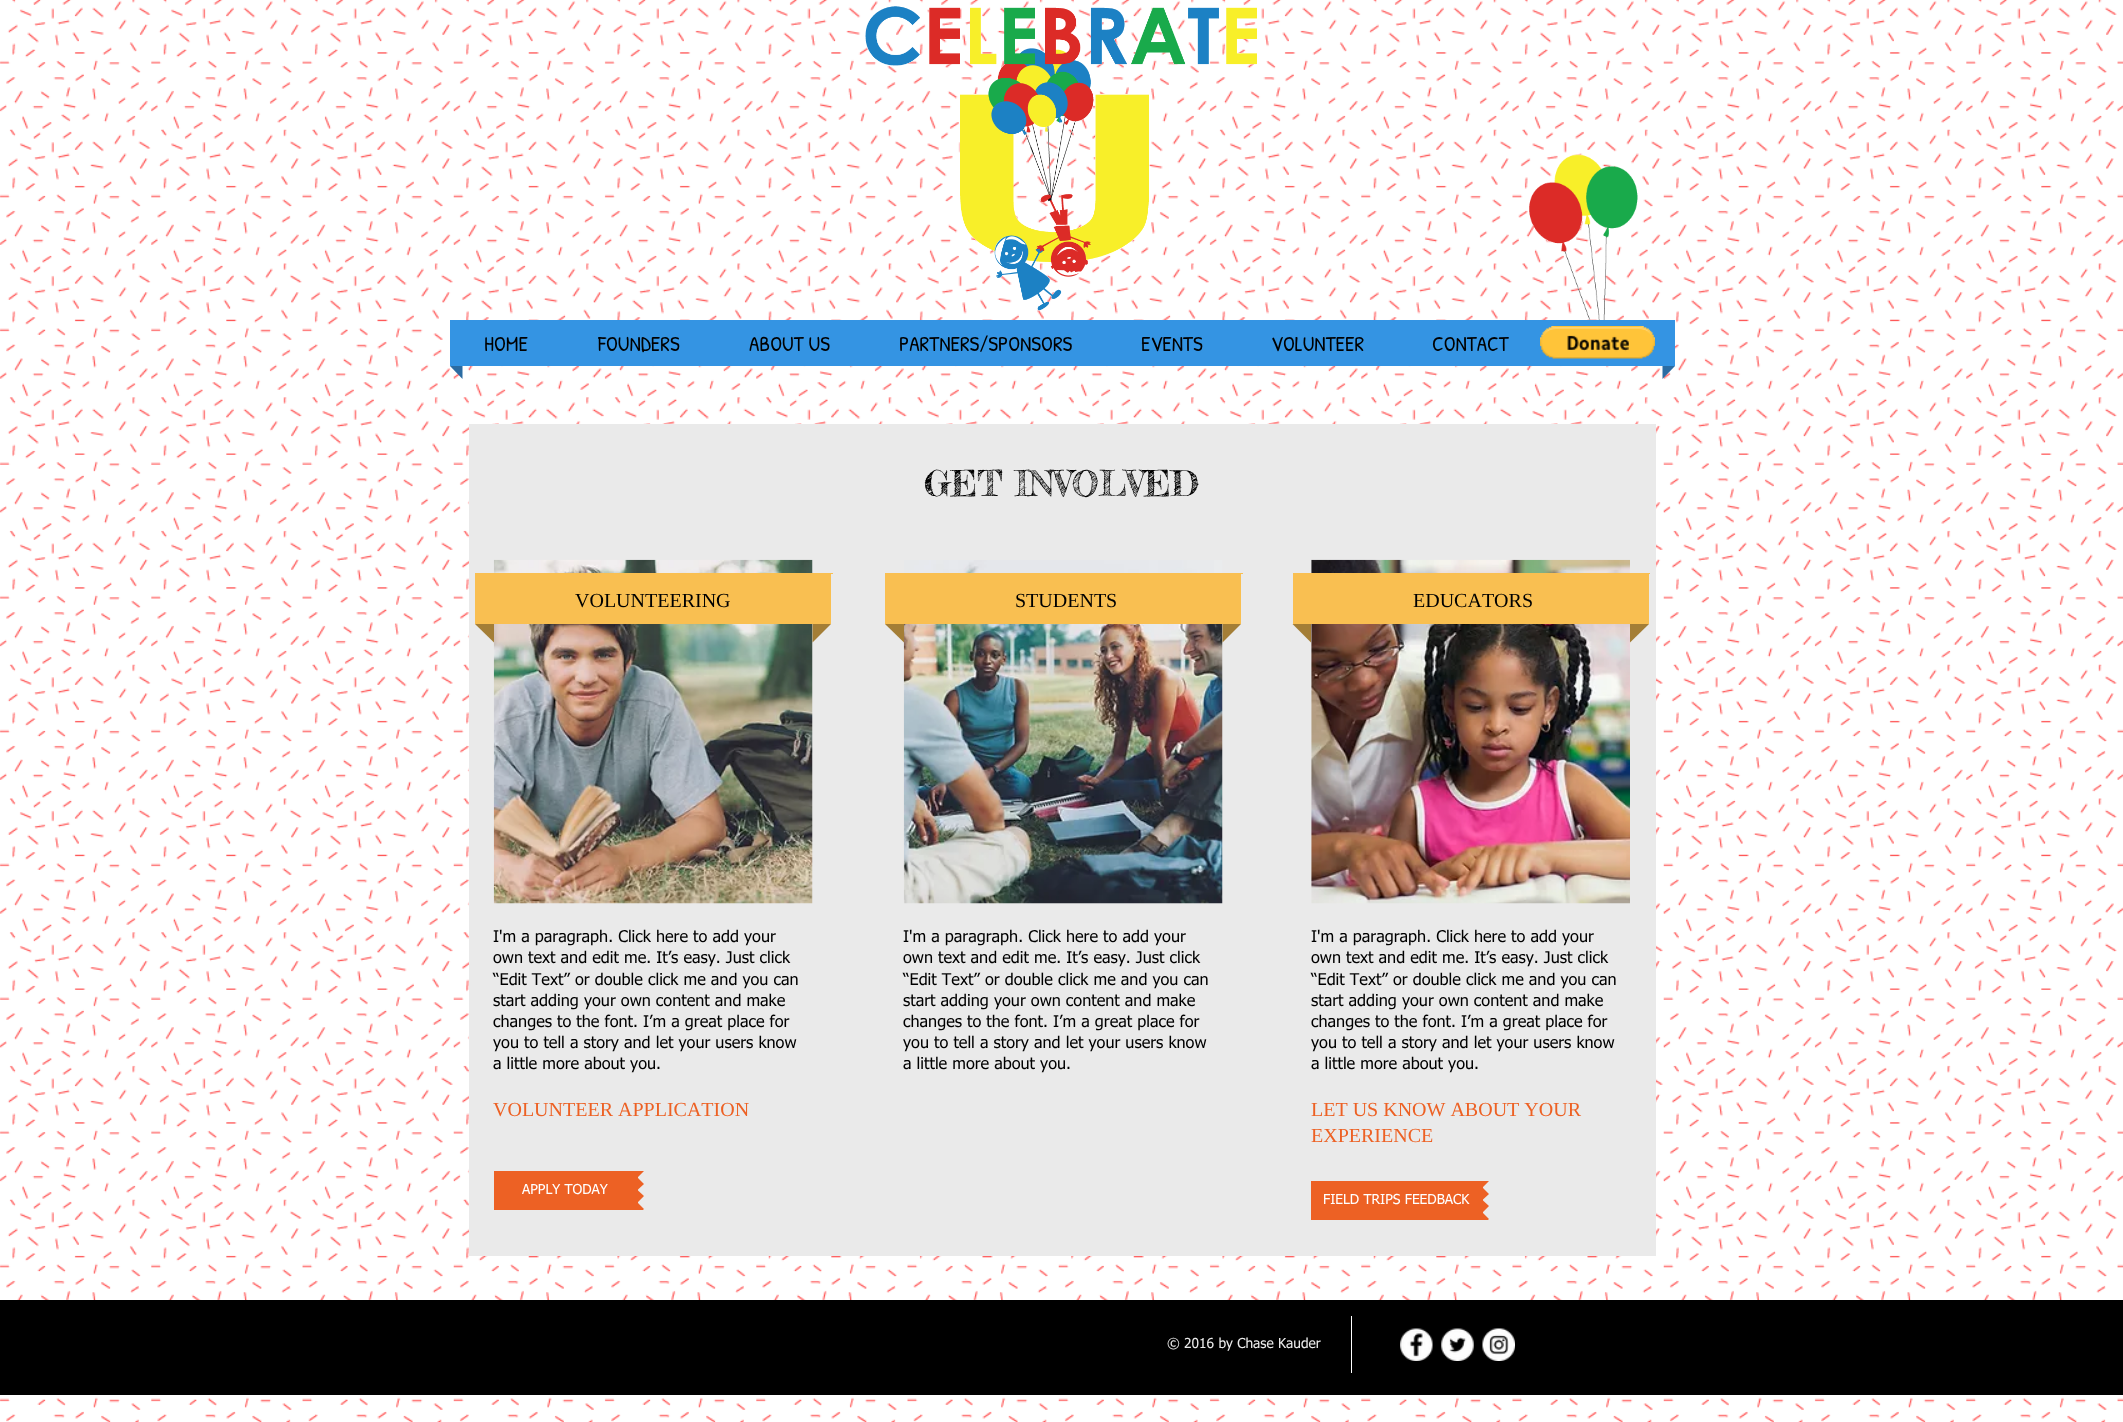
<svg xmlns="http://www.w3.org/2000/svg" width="2123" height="1422">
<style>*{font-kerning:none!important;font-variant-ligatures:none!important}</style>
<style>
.a{font:21.25px Patrick Hand;fill:#000}
.b{font:35px Fredericka the Great;fill:#000}
.c{font:20px Liberation Serif;fill:#000}
.d{font:16.25px tahoma;fill:#000}
.e{font:20px Liberation Serif;fill:#ed6124}
.f{font:13.75px tahoma;fill:#fff}
.g{font:13.75px tahoma;fill:#eaeaea}
</style>
<defs>
<clipPath id="clip1"><path d="M638 1171h6v39H638z"/></clipPath>
<clipPath id="clip2"><path d="M1483 1181h6v39H1483z"/></clipPath>
</defs>
<rect width="100%" height="100%" fill="#fff"/>
<image href="1.png" x="0" y="0" width="2123" height="1422"/>
<image href="2.png" x="865" y="6" width="392" height="305"/>
<image href="3.png" x="1529" y="154" width="109" height="166"/>
<path fill="#3494e3" d="M450 320h1225v46H450z"/>
<path fill="#2b6ca3" d="M450 366h12.5v13z"/>
<path fill="#2b6ca3" d="M1662.5 366h12.5l-12.5 13z"/>
<image href="4.png" x="1540" y="326" width="115" height="33"/>
<path fill="#eaeaea" d="M469 424h1187v832H469z"/>
<image href="5.png" x="493" y="559" width="320" height="345"/>
<image href="6.png" x="903" y="560" width="320" height="344"/>
<image href="7.png" x="1311" y="559" width="319" height="345"/>
<path fill="#f9bf51" d="M475 573h356v51H475z"/>
<path fill="#f9bf51" d="M831 573h2v1H831z"/>
<path fill="#a47e36" d="M475 624h19v18.5z"/>
<path fill="#a47e36" d="M812.5 624h18.5l-18.5 18.5z"/>
<path fill="#f9bf51" d="M885 573h356v51H885z"/>
<path fill="#f9bf51" d="M1241 573h2v1H1241z"/>
<path fill="#a47e36" d="M885 624h19v18.5z"/>
<path fill="#a47e36" d="M1222.5 624h18.5l-18.5 18.5z"/>
<path fill="#f9bf51" d="M1293 573h356v51H1293z"/>
<path fill="#f9bf51" d="M1649 573h1v1H1649z"/>
<path fill="#a47e36" d="M1292.5 624h18.5v18.5z"/>
<path fill="#a47e36" d="M1630 624h19l-19 18.5z"/>
<path fill="#ed6124" d="M494 1171h144v39H494z"/>
<g clip-path="url(#clip1)">
<path fill="#ed6124" d="M637.5 1177.5v-12.5l6.5 6zm0 12.5v-12.5l6.5 6.5zm0 12.5v-12.5l6.5 6zm0 12.5v-12.5l6.5 6.5z"/>
</g>
<path fill="#ed6124" d="M1311 1181h172v39H1311z"/>
<g clip-path="url(#clip2)">
<path fill="#ed6124" d="M1482.5 1187.5v-12.5l6.5 6zm0 12.5v-12.5l6.5 6.5zm0 12.5v-12.5l6.5 6zm0 12.5v-12.5l6.5 6.5z"/>
</g>
<path fill="#000" d="M0 1300h2123v95H0z"/>
<path fill="#fff" d="M1351 1316h1v57H1351z"/>
<image href="8.png" x="1400" y="1328" width="33" height="33"/>
<image href="9.png" x="1441" y="1328" width="33" height="33"/>
<image href="10.png" x="1482" y="1328" width="33" height="33"/>
<text class="a" x="484" y="351">HOME</text>
<text class="a" x="598" y="351">FOUNDERS</text>
<text class="a" x="749" y="351">ABOUT US</text>
<text class="a" x="899" y="351">PARTNERS/SPONSORS</text>
<text class="a" x="1141" y="351">EVENTS</text>
<text class="a" x="1271" y="351">VOLUNTEER</text>
<text class="a" x="1432" y="351">CONTACT</text>
<text class="b" x="924" y="496">GET INVOLVED</text>
<text class="c" x="575" y="607">VOLUNTEERING</text>
<text class="c" x="1015" y="607">STUDENTS</text>
<text class="c" x="1413" y="607">EDUCATORS</text>
<text class="d" x="493" y="942">I'm a paragraph. Click here to add your</text>
<text class="d" x="493" y="963">own text and edit me. It’s easy. Just click</text>
<text class="d" x="493" y="985">“Edit Text” or double click me and you can</text>
<text class="d" x="493" y="1006">start adding your own content and make</text>
<text class="d" x="493" y="1027">changes to the font. I’m a great place for</text>
<text class="d" x="493" y="1048">you to tell a story and let your users know</text>
<text class="d" x="493" y="1069">a little more about you.</text>
<text class="e" x="493" y="1116">VOLUNTEER APPLICATION</text>
<text class="d" x="903" y="942">I'm a paragraph. Click here to add your</text>
<text class="d" x="903" y="963">own text and edit me. It’s easy. Just click</text>
<text class="d" x="903" y="985">“Edit Text” or double click me and you can</text>
<text class="d" x="903" y="1006">start adding your own content and make</text>
<text class="d" x="903" y="1027">changes to the font. I’m a great place for</text>
<text class="d" x="903" y="1048">you to tell a story and let your users know</text>
<text class="d" x="903" y="1069">a little more about you.</text>
<text class="d" x="1311" y="942">I'm a paragraph. Click here to add your</text>
<text class="d" x="1311" y="963">own text and edit me. It’s easy. Just click</text>
<text class="d" x="1311" y="985">“Edit Text” or double click me and you can</text>
<text class="d" x="1311" y="1006">start adding your own content and make</text>
<text class="d" x="1311" y="1027">changes to the font. I’m a great place for</text>
<text class="d" x="1311" y="1048">you to tell a story and let your users know</text>
<text class="d" x="1311" y="1069">a little more about you.</text>
<text class="e" x="1311" y="1116">LET US KNOW ABOUT YOUR</text>
<text class="e" x="1311" y="1142">EXPERIENCE</text>
<text class="f" x="522" y="1194">APPLY TODAY</text>
<text class="f" x="1323" y="1204">FIELD TRIPS FEEDBACK</text>
<text class="g" x="1167" y="1348">© 2016 by Chase Kauder</text>
</svg>
